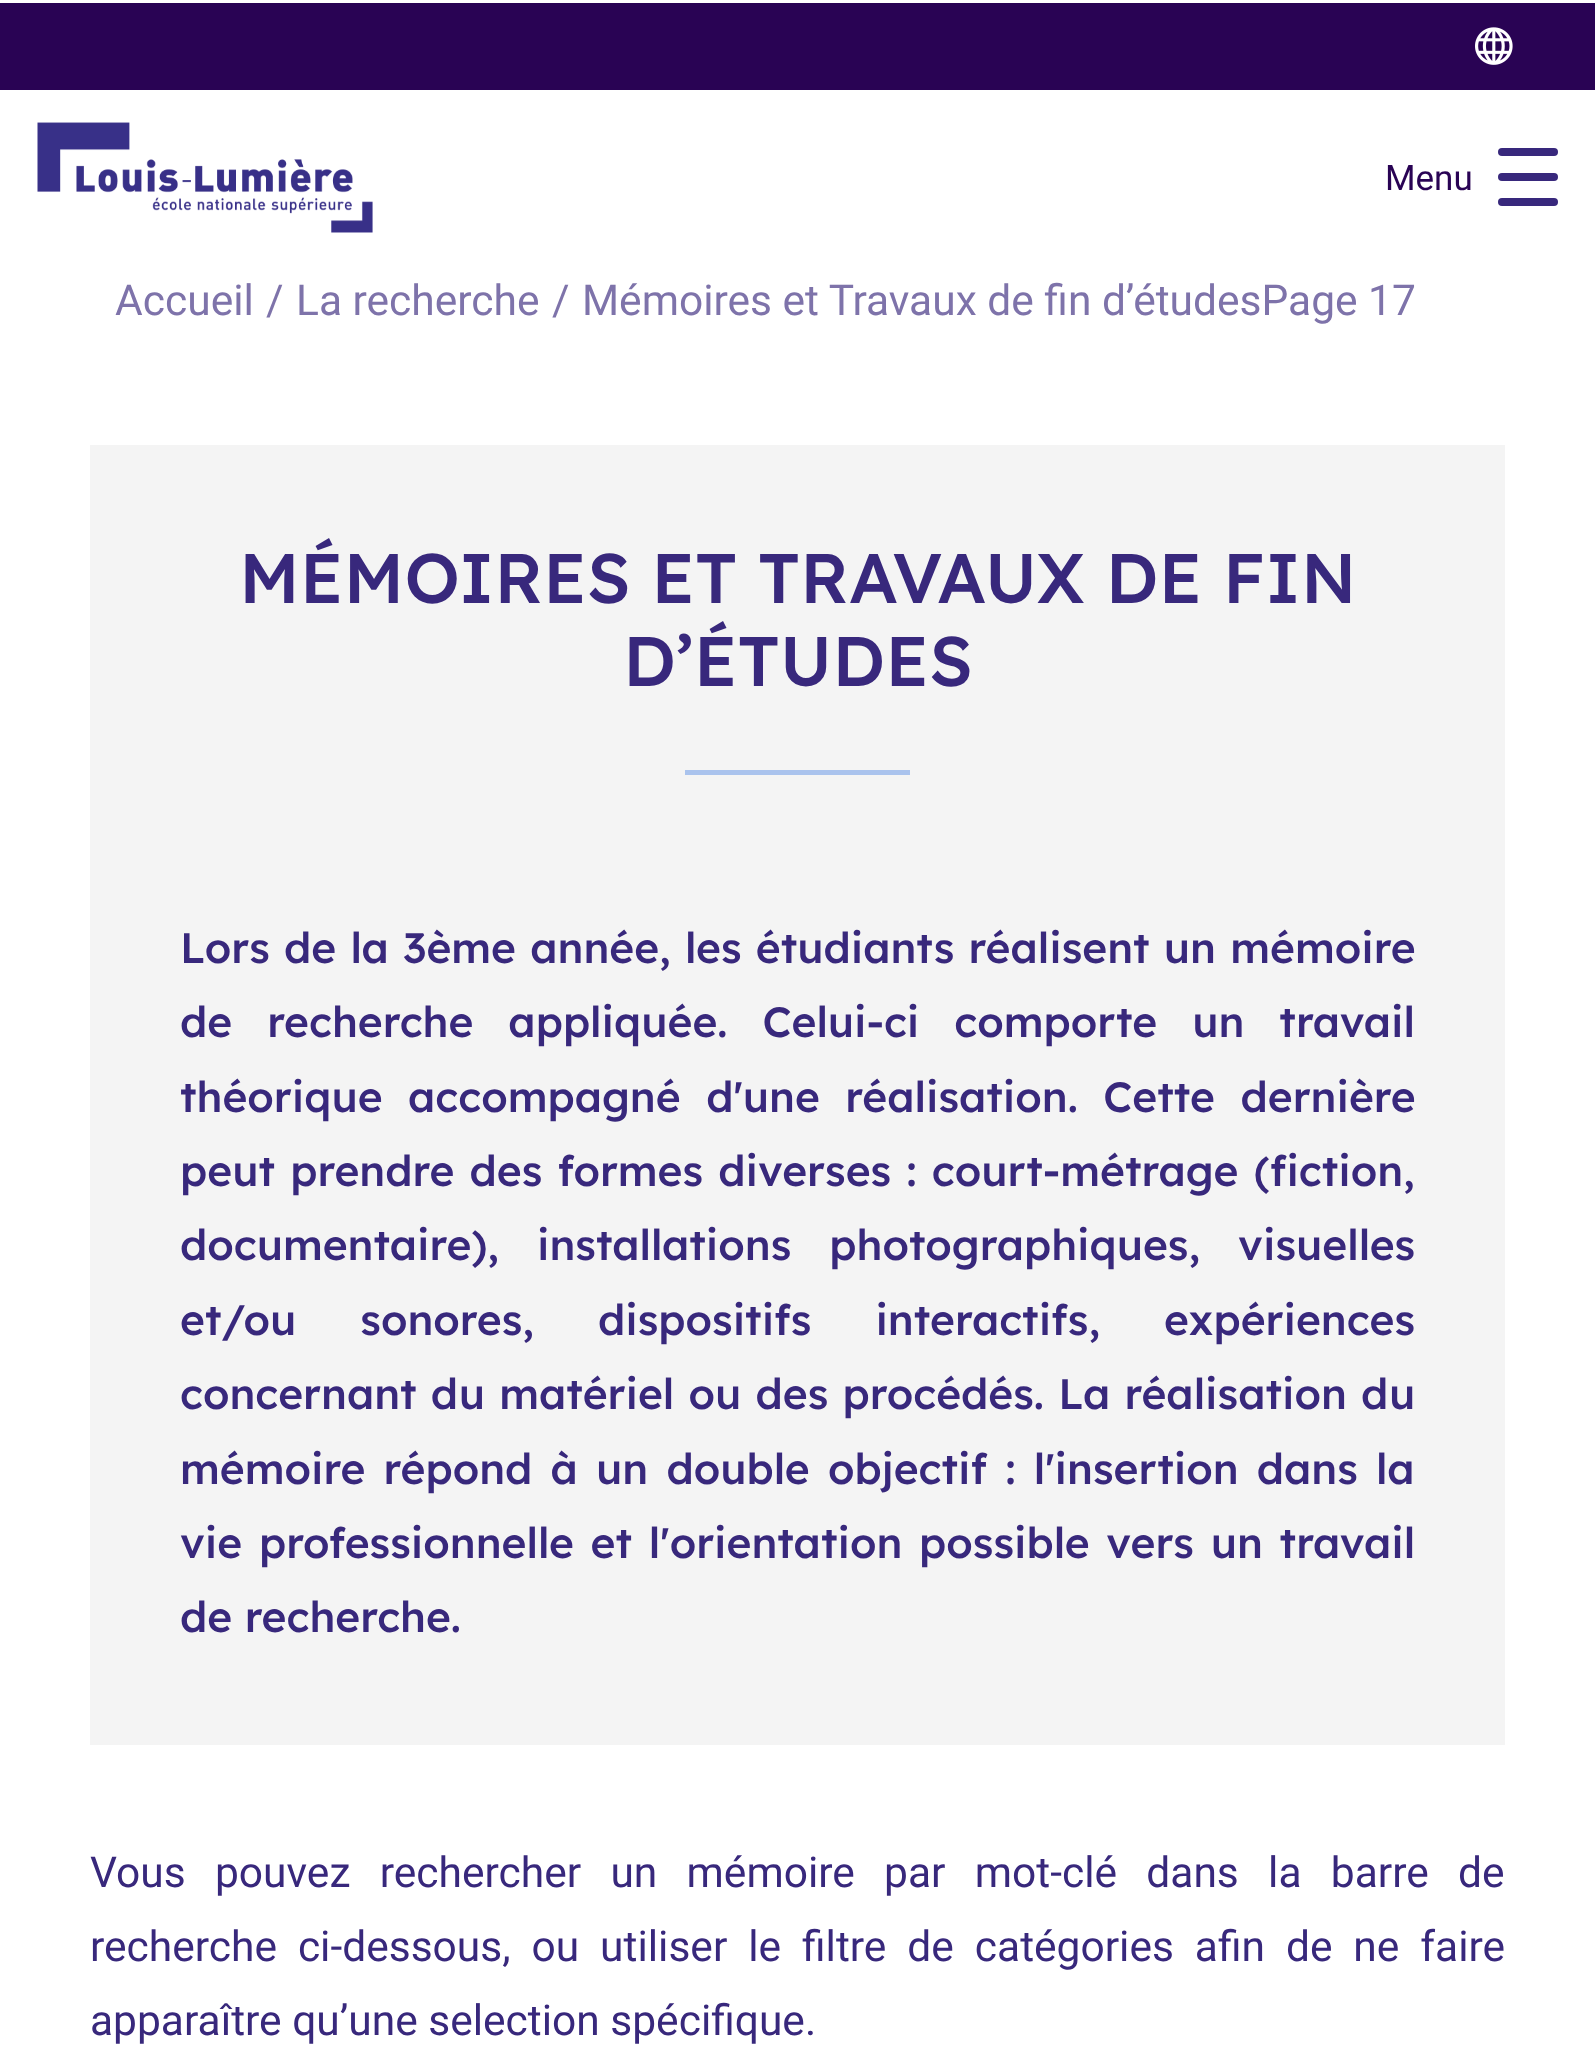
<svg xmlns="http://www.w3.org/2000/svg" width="1595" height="2064">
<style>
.a{font:35px Roboto;fill:#290354}
.b{font:42.5px Roboto;fill:#7e73aa}
.c{font:500 70px Lexend;fill:#38287c}
.d{font:500 42.5px Lexend;fill:#38287c}
.e{font:42.5px Roboto;fill:#38287c}
</style>
<rect width="100%" height="100%" fill="#fff"/>
<path fill="#290354" d="M0 3h1595v87H0z"/>
<image href="1.png" x="1475" y="27" width="38" height="38"/>
<image href="2.png" x="37" y="122" width="336" height="111"/>
<rect fill="#38287c" x="1498" y="173" width="60" height="8" rx="4"/>
<rect fill="#38287c" x="1498" y="148" width="60" height="8" rx="4"/>
<rect fill="#38287c" x="1498" y="198" width="60" height="8" rx="4"/>
<path fill="#f4f4f4" d="M90 445h1415v1300H90z"/>
<path fill="#aac3ed" d="M685 770h225v5H685z"/>
<text class="a" x="1385" y="190">Menu</text>
<text class="b" x="115" y="315">Accueil</text>
<text class="b" x="266" y="315">/</text>
<text class="b" x="296" y="315">La recherche</text>
<text class="b" x="552" y="315">/</text>
<text class="b" x="582" y="315">Mémoires et Travaux de fin d’étudesPage 17</text>
<text class="c" x="239" y="603">MÉMOIRES ET TRAVAUX DE FIN</text>
<text class="c" x="623" y="686">D’ÉTUDES</text>
<text class="d" x="180" y="963" word-spacing="1.75">Lors de la 3ème année, les étudiants réalisent un mémoire</text>
<text class="d" x="180" y="1037" word-spacing="22.5">de recherche appliquée. Celui-ci comporte un travail</text>
<text class="d" x="180" y="1112" word-spacing="13">théorique accompagné d'une réalisation. Cette dernière</text>
<text class="d" x="180" y="1186" word-spacing="2.75">peut prendre des formes diverses : court-métrage (fiction,</text>
<text class="d" x="180" y="1260" word-spacing="25.5">documentaire), installations photographiques, visuelles</text>
<text class="d" x="180" y="1335" word-spacing="51.5">et/ou sonores, dispositifs interactifs, expériences</text>
<text class="d" x="180" y="1409" word-spacing="1.75">concernant du matériel ou des procédés. La réalisation du</text>
<text class="d" x="180" y="1484" word-spacing="5.75">mémoire répond à un double objectif : l'insertion dans la</text>
<text class="d" x="180" y="1558" word-spacing="4.25">vie professionnelle et l'orientation possible vers un travail</text>
<text class="d" x="180" y="1632">de recherche.</text>
<text class="e" x="90" y="1887" word-spacing="18.75">Vous pouvez rechercher un mémoire par mot-clé dans la barre de</text>
<text class="e" x="90" y="1961" word-spacing="10.4">recherche ci-dessous, ou utiliser le filtre de catégories afin de ne faire</text>
<text class="e" x="90" y="2035">apparaître qu’une selection spécifique.</text>
</svg>
